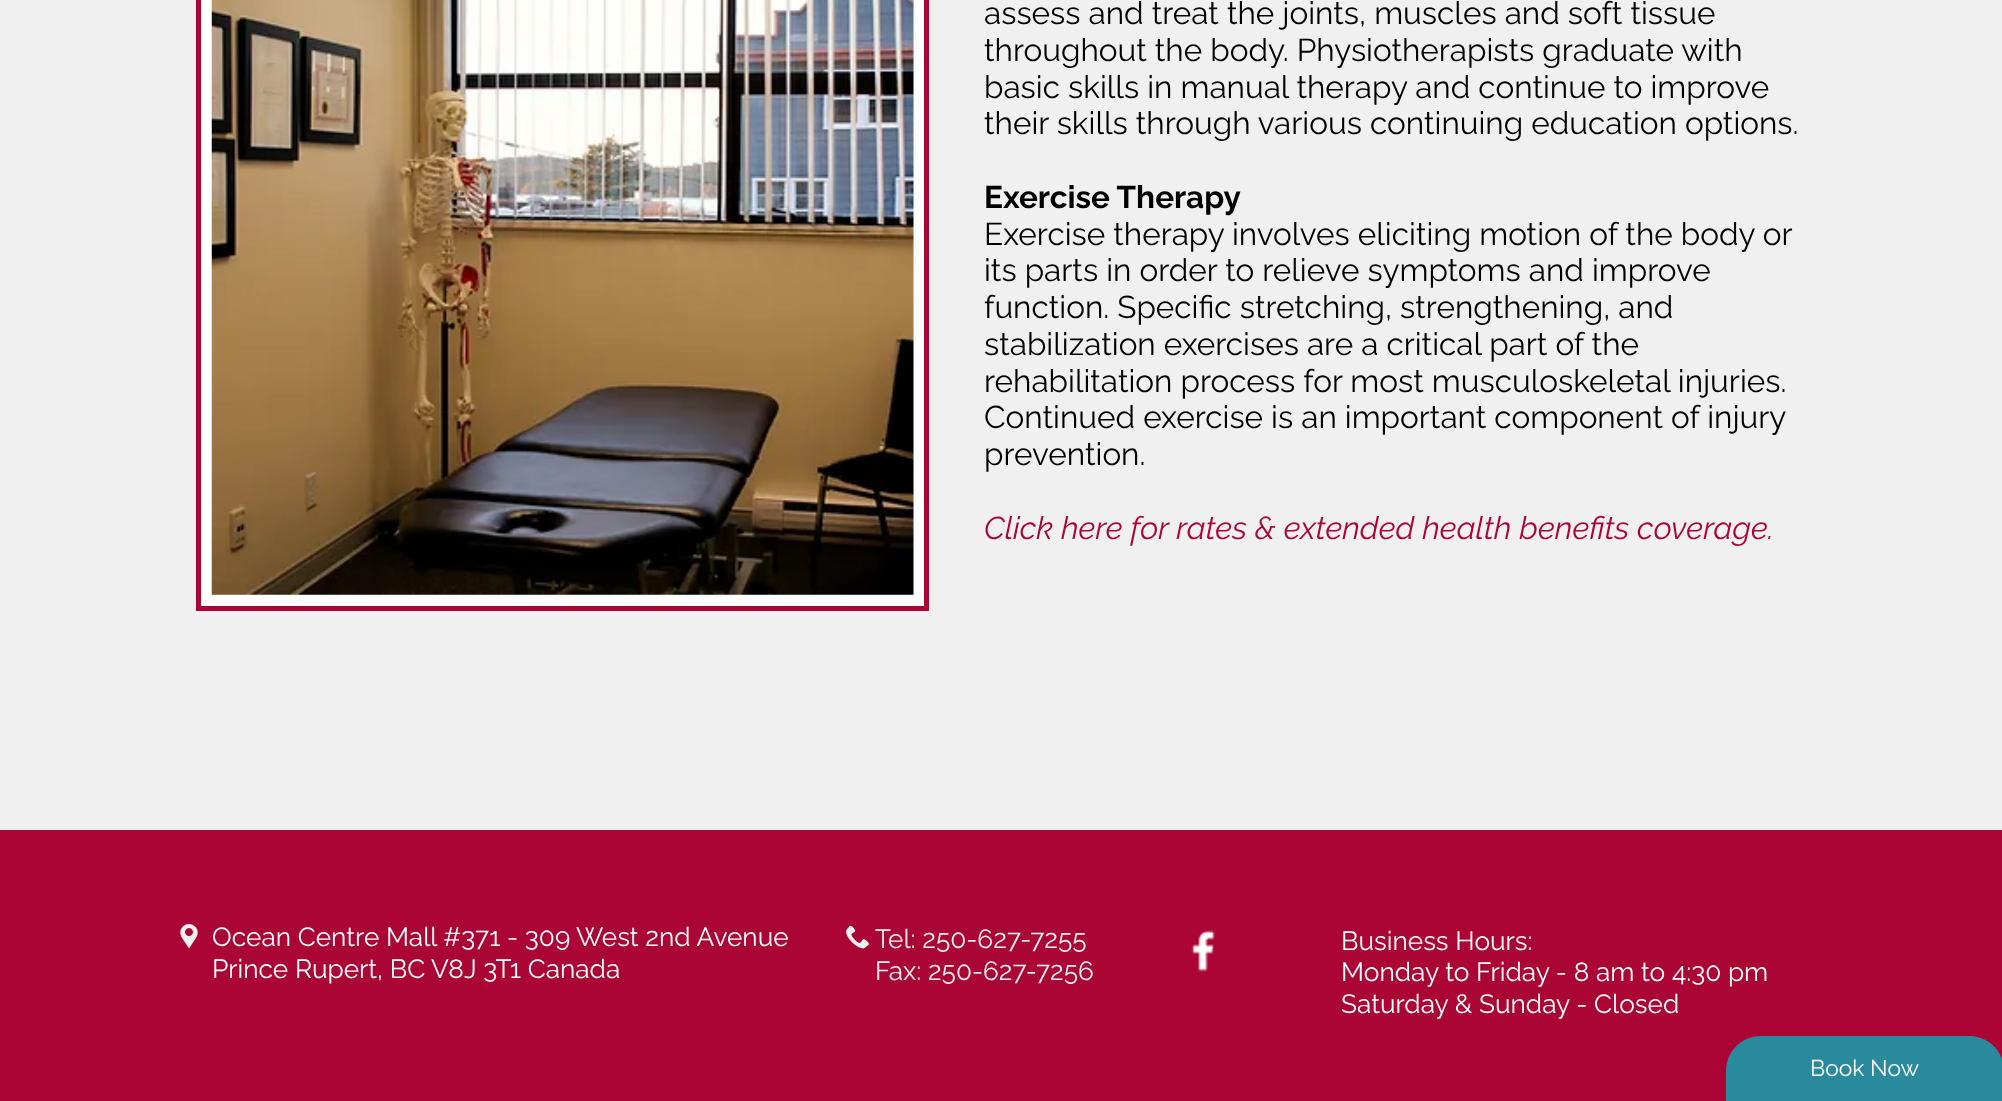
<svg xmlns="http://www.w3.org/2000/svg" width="2002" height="1101">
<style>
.a{font:31.5px Raleway;fill:#000}
.b{font:bold 31.5px Raleway;fill:#000}
.c{font:italic 31.5px Raleway;fill:#ab0535}
.d{font:26.25px Raleway;fill:#fff}
.e{font:26.25px Raleway;fill:#f0f0f0}
.f{font:22.75px Raleway;fill:#fff}
</style>
<rect width="100%" height="100%" fill="#f0f0f0"/>
<path fill="#fff" stroke="#ab0535" stroke-width="5" d="M198.5 -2.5h728v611H198.5z"/>
<image href="1.png" x="211" y="0" width="703" height="595"/>
<path fill="#ab0535" d="M0 830h2002v271H0z"/>
<image href="2.png" x="180" y="924" width="18" height="25"/>
<image href="3.png" x="846" y="925" width="23" height="24"/>
<image href="4.png" x="1191" y="930" width="24" height="42"/>
<path fill="#2a8a9d" d="M1761 1036h208c19.5 0 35 15.5 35 35v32h-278v-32c0-19.5 15.5-35 35-35z"/>
<text class="a" x="984" y="24">assess and treat the joints, muscles and soft tissue</text>
<text class="a" x="984" y="61">throughout the body. Physiotherapists graduate with</text>
<text class="a" x="984" y="98">basic skills in manual therapy and continue to improve</text>
<text class="a" x="984" y="134">their skills through various continuing education options.</text>
<text class="b" x="984" y="208">Exercise Therapy</text>
<text class="a" x="984" y="245">Exercise therapy involves eliciting motion of the body or</text>
<text class="a" x="984" y="281">its parts in order to relieve symptoms and improve</text>
<text class="a" x="984" y="318">function. Specific stretching, strengthening, and</text>
<text class="a" x="984" y="355">stabilization exercises are a critical part of the</text>
<text class="a" x="984" y="392">rehabilitation process for most musculoskeletal injuries.</text>
<text class="a" x="984" y="428">Continued exercise is an important component of injury</text>
<text class="a" x="984" y="465">prevention.</text>
<text class="c" x="984" y="539">Click here for rates &amp; extended health benefits coverage.</text>
<text class="d" x="212" y="946">Ocean Centre Mall #371 - 309 West 2nd Avenue</text>
<text class="d" x="212" y="978">Prince Rupert, BC V8J 3T1 Canada</text>
<text class="e" x="875" y="948">Tel: 250-627-7255</text>
<text class="e" x="875" y="980">Fax: 250-627-7256</text>
<text class="d" x="1341" y="950">Business Hours:</text>
<text class="d" x="1341" y="981">Monday to Friday - 8 am to 4:30 pm</text>
<text class="d" x="1341" y="1013">Saturday &amp; Sunday - Closed</text>
<text class="f" x="1810" y="1076">Book Now</text>
</svg>
